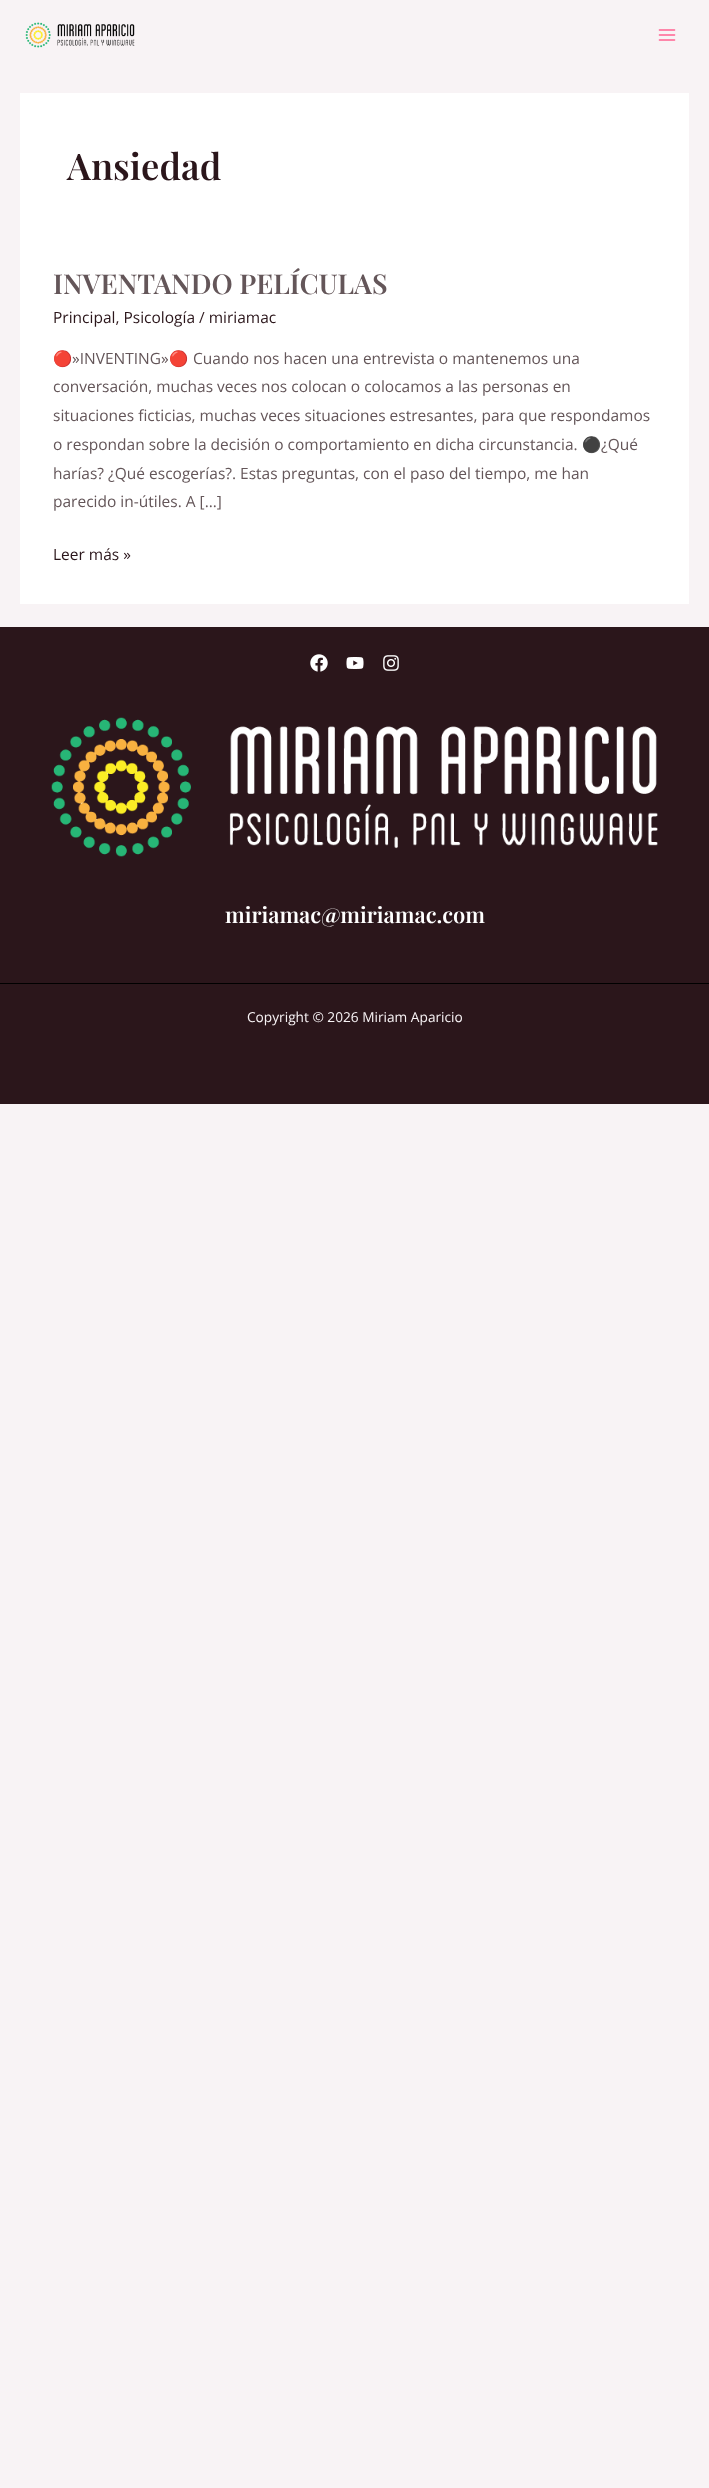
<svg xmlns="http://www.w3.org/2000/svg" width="709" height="2488">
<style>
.a{font:600 36.5px Playfair Display;fill:#2b161b}
.b{font:600 27.4px Playfair Display;fill:#645659}
.c{font:15.5px Open Sans;fill:#2b161b}
.d{font:15.5px Noto Color Emoji;fill:#645659}
.e{font:15.5px Open Sans;fill:#645659}
.f{font:600 21.9px Playfair Display;fill:#fff}
.g{font:13.7px Open Sans;fill:#f8f3f5}
</style>
<rect width="100%" height="100%" fill="#f8f3f5"/>
<image href="1.png" x="25" y="22" width="110" height="26"/>
<image href="2.png" x="658" y="29" width="18" height="12"/>
<path fill="#fff" d="M20 93h669v511H20z"/>
<path fill="#2b161b" d="M0 627h709v356H0z"/>
<image href="3.png" x="310" y="654" width="18" height="18"/>
<image href="4.png" x="346" y="657" width="18" height="12"/>
<image href="5.png" x="383" y="655" width="16" height="16"/>
<image href="6.png" x="51" y="717" width="607" height="140"/>
<path fill="#2b161b" d="M0 984h709v120H0z"/>
<path fill="#000" d="M0 983h709v1H0z"/>
<text class="a" x="67" y="180">Ansiedad</text>
<text class="b" x="53" y="294">INVENTANDO PELÍCULAS</text>
<text class="c" x="53" y="323">Principal, Psicología / miriamac</text>
<text class="d" x="53" y="364">🔴</text>
<text class="e" x="72" y="364">»INVENTING»</text>
<text class="d" x="169" y="364">🔴</text>
<text class="e" x="193" y="364">Cuando nos hacen una entrevista o mantenemos una</text>
<text class="e" x="53" y="392">conversación, muchas veces nos colocan o colocamos a las personas en</text>
<text class="e" x="53" y="421">situaciones ficticias, muchas veces situaciones estresantes, para que respondamos</text>
<text class="e" x="53" y="450">o respondan sobre la decisión o comportamiento en dicha circunstancia.</text>
<text class="d" x="582" y="450">⚫</text>
<text class="e" x="601" y="450">¿Qué</text>
<text class="e" x="53" y="479">harías? ¿Qué escogerías?. Estas preguntas, con el paso del tiempo, me han</text>
<text class="e" x="53" y="507">parecido in-útiles. A […]</text>
<text class="c" x="53" y="560">Leer más »</text>
<text class="f" x="225" y="923">miriamac@miriamac.com</text>
<text class="g" x="247" y="1022">Copyright © 2026 Miriam Aparicio</text>
</svg>
